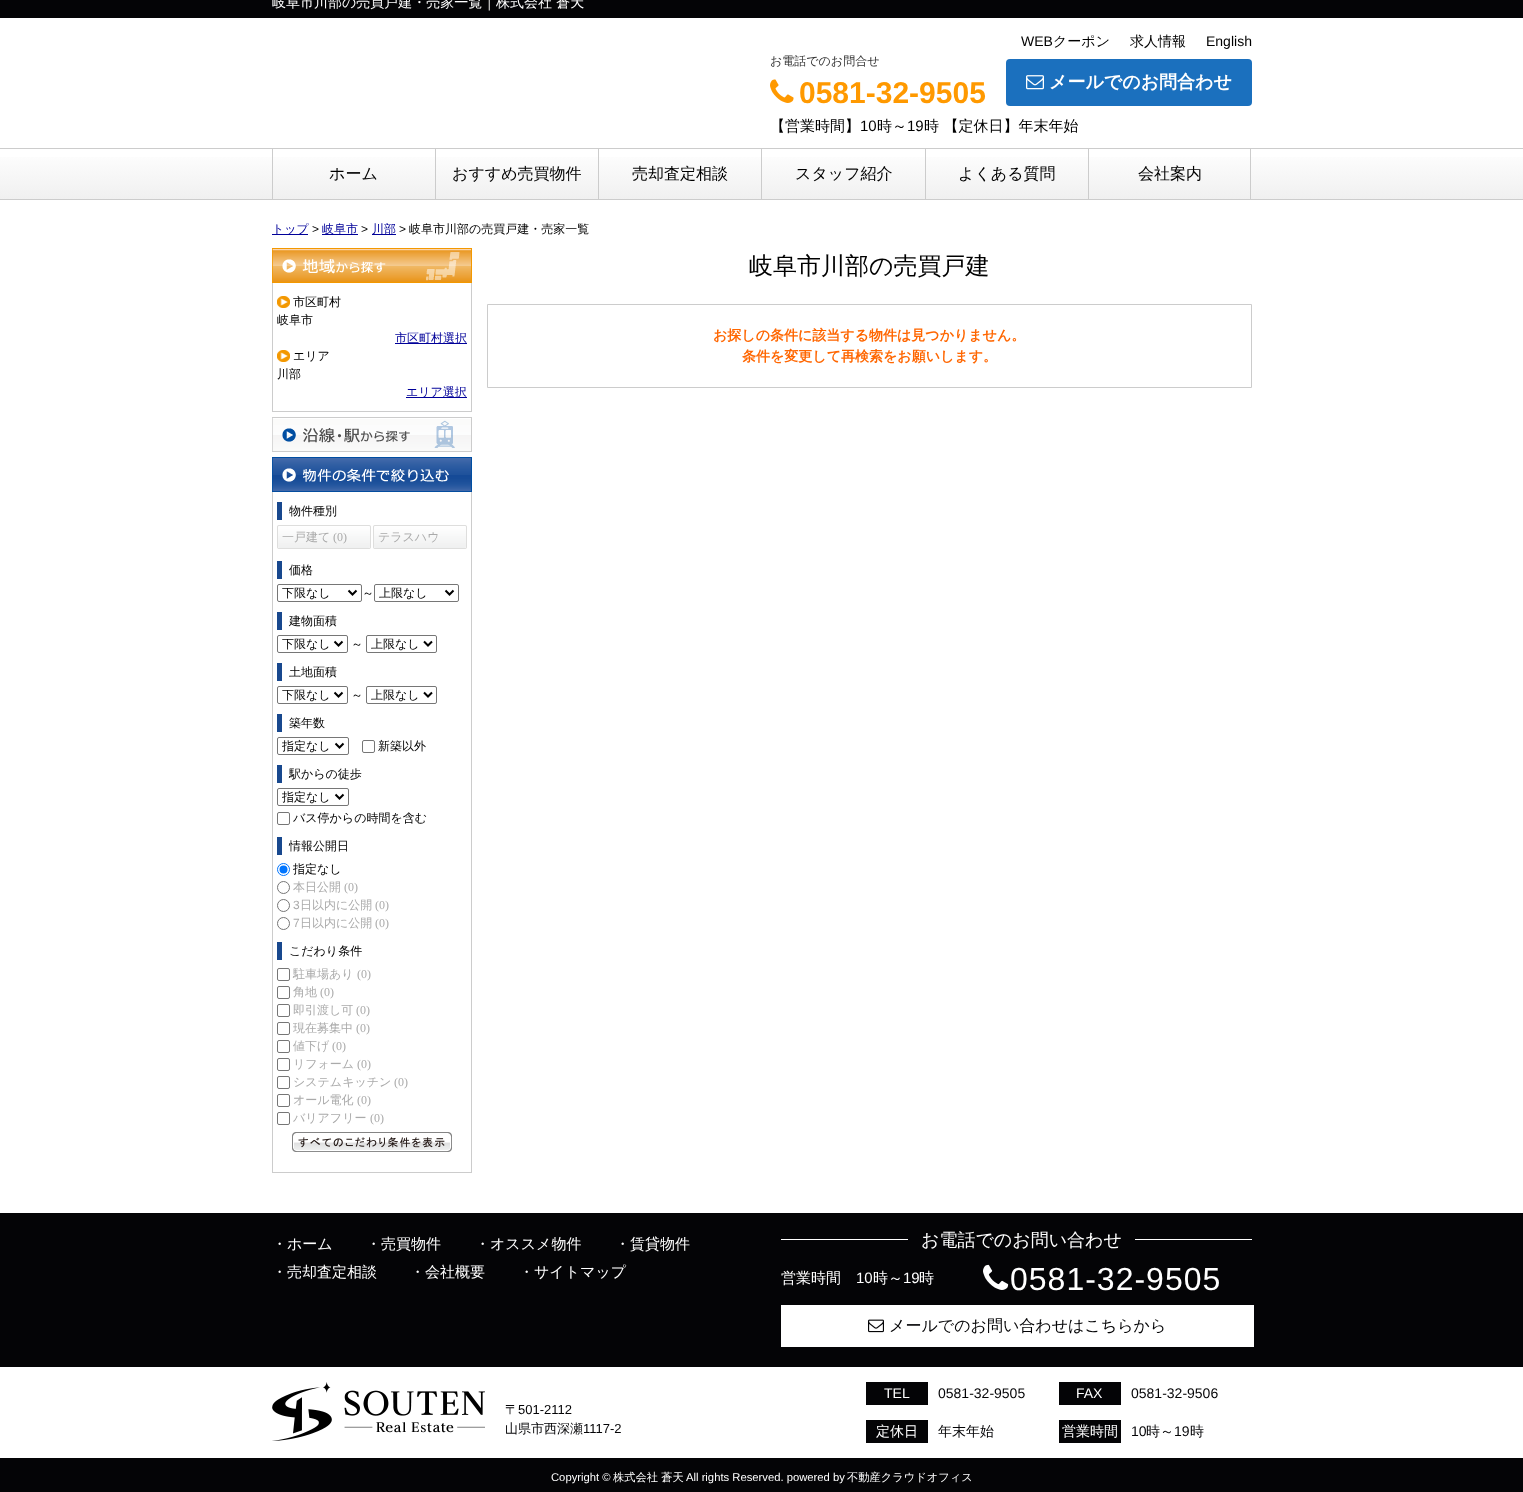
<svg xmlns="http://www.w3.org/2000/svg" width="1523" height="1492">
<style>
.a{font:500 14px WenQuanYi Zen Hei;fill:#fff}
.b{font:14px Liberation Sans;fill:#000}
.c{font:500 14px WenQuanYi Zen Hei;fill:#000}
.d{font:500 12px WenQuanYi Zen Hei;fill:#333}
.e{font:bold 30px Liberation Sans;fill:#f90}
.f{font:bold 18px WenQuanYi Zen Hei;fill:#fff}
.g{font:500 15px WenQuanYi Zen Hei;fill:#000}
.h{font:15px Liberation Sans;fill:#000}
.i{font:500 16px WenQuanYi Zen Hei;fill:#000}
.j{font:500 12px WenQuanYi Zen Hei;fill:#009}
.k{font:12px Liberation Sans;fill:#000}
.l{font:500 12px WenQuanYi Zen Hei;fill:#000}
.m{font:500 12px WenQuanYi Zen Hei;fill:#aaa}
.n{font:12px Liberation Serif;fill:#aaa}
.o{font:12px Liberation Sans;fill:#aaa}
.p{font:500 24px WenQuanYi Zen Hei;fill:#000}
.q{font:bold 14px WenQuanYi Zen Hei;fill:#f60}
.r{font:500 15px WenQuanYi Zen Hei;fill:#fff}
.s{font:500 18px WenQuanYi Zen Hei;fill:#fff}
.t{font:15px Liberation Sans;fill:#fff}
.u{font:32px Liberation Sans;letter-spacing:1px;fill:#fff}
.v{font:500 16px WenQuanYi Zen Hei;fill:#040406}
.w{font:500 13px WenQuanYi Zen Hei;fill:#040406}
.x{font:13px Liberation Sans;fill:#040406}
.y{font:14px Liberation Sans;fill:#fff}
.z{font:14px Liberation Sans;fill:#040406}
.a1{font:500 14px WenQuanYi Zen Hei;fill:#040406}
.b1{font:11.25px Liberation Sans;fill:#fff}
.c1{font:500 11.25px WenQuanYi Zen Hei;fill:#fff}
</style>
<defs>
<linearGradient id="g1" gradientUnits="userSpaceOnUse" x1="762" y1="149" x2="762" y2="199"><stop offset="0" stop-color="#fff"/><stop offset="1" stop-color="#f0f0f0"/></linearGradient>
<clipPath id="clip1"><path d="M282 738h50v16H282z"/></clipPath>
<clipPath id="clip2"><path d="M282 789h50v16H282z"/></clipPath>
</defs>
<rect width="100%" height="100%" fill="#fff"/>
<path fill="#040406" d="M0 0h1523v18H0z"/>
<image href="1.png" x="770" y="79" width="24" height="24"/>
<rect fill="#1b70be" x="1006" y="59" width="246" height="47" rx="4"/>
<image href="2.png" x="1026" y="75" width="18" height="15"/>
<path fill="url(#g1)" d="M0 157h1523v42H0z"/>
<path fill="#ccc" d="M0 148h1523v1H0z"/>
<path fill="#ccc" d="M0 199h1523v1H0z"/>
<path fill="#ccc" d="M272 149h1v50H272z"/>
<path fill="#ccc" d="M435 149h1v50H435z"/>
<path fill="#ccc" d="M598 149h1v50H598z"/>
<path fill="#ccc" d="M761 149h1v50H761z"/>
<path fill="#ccc" d="M925 149h1v50H925z"/>
<path fill="#ccc" d="M1250 149h1v50H1250z"/>
<path fill="#ccc" d="M1088 149h1v50H1088z"/>
<path fill="#009" d="M272 234h36v1H272z"/>
<path fill="#009" d="M322 234h36v1H322z"/>
<path fill="#009" d="M372 234h24v1H372z"/>
<image href="3.png" x="272" y="248" width="200" height="35"/>
<path fill="#ccc" d="M471 283h1v129H471z"/>
<path fill="#ccc" d="M272 411h200v1H272z"/>
<path fill="#ccc" d="M272 283h1v129H272z"/>
<image href="4.png" x="277" y="296" width="13" height="12"/>
<path fill="#009" d="M395 343h72v1H395z"/>
<image href="4.png" x="277" y="350" width="13" height="12"/>
<path fill="#009" d="M406 397h61v1H406z"/>
<image href="5.png" x="272" y="417" width="200" height="35"/>
<image href="6.png" x="272" y="457" width="200" height="35"/>
<path fill="#ccc" d="M471 492h1v681H471z"/>
<path fill="#ccc" d="M272 1172h200v1H272z"/>
<path fill="#ccc" d="M272 492h1v681H272z"/>
<path fill="#18488e" d="M277 502h5v18H277z"/>
<image href="7.png" x="277" y="525" width="94" height="24"/>
<image href="7.png" x="373" y="525" width="94" height="24"/>
<path fill="#18488e" d="M277 561h5v18H277z"/>
<rect fill="none" stroke="#767676" x="277.5" y="584.5" width="84" height="17" rx="1.5"/>
<path fill="none" stroke="#000" stroke-width="2" d="M348.5 590.5l4 4l4-4"/>
<rect fill="none" stroke="#767676" x="374.5" y="584.5" width="84" height="17" rx="1.5"/>
<path fill="none" stroke="#000" stroke-width="2" d="M445.5 590.5l4 4l4-4"/>
<path fill="#18488e" d="M277 612h5v18H277z"/>
<rect fill="none" stroke="#767676" x="277.5" y="635.5" width="70" height="17" rx="1.5"/>
<path fill="none" stroke="#000" stroke-width="2" d="M334.5 641.5l4 4l4-4"/>
<rect fill="none" stroke="#767676" x="366.5" y="635.5" width="70" height="17" rx="1.5"/>
<path fill="none" stroke="#000" stroke-width="2" d="M424 641.5l4 4l4-4"/>
<path fill="#18488e" d="M277 663h5v18H277z"/>
<rect fill="none" stroke="#767676" x="277.5" y="686.5" width="70" height="17" rx="1.5"/>
<path fill="none" stroke="#000" stroke-width="2" d="M334.5 692.5l4 4l4-4"/>
<rect fill="none" stroke="#767676" x="366.5" y="686.5" width="70" height="17" rx="1.5"/>
<path fill="none" stroke="#000" stroke-width="2" d="M424 692.5l4 4l4-4"/>
<path fill="#18488e" d="M277 714h5v18H277z"/>
<rect fill="none" stroke="#767676" x="277.5" y="737.5" width="71" height="17" rx="1.5"/>
<path fill="none" stroke="#000" stroke-width="2" d="M335.5 743.5l4 4l4-4"/>
<rect fill="none" stroke="#767676" x="362.5" y="740.5" width="12" height="12" rx="1.5"/>
<path fill="#18488e" d="M277 765h5v18H277z"/>
<rect fill="none" stroke="#767676" x="277.5" y="788.5" width="71" height="17" rx="1.5"/>
<path fill="none" stroke="#000" stroke-width="2" d="M335.5 794.5l4 4l4-4"/>
<rect fill="none" stroke="#767676" x="277.5" y="812.5" width="12" height="12" rx="1.5"/>
<path fill="#18488e" d="M277 837h5v18H277z"/>
<circle fill="none" stroke="#0075ff" cx="283.5" cy="869.5" r="6"/>
<circle fill="#0075ff" cx="283.5" cy="869.5" r="4"/>
<circle fill="none" stroke="#767676" cx="283.5" cy="887.5" r="6"/>
<circle fill="none" stroke="#767676" cx="283.5" cy="905.5" r="6"/>
<circle fill="none" stroke="#767676" cx="283.5" cy="923.5" r="6"/>
<path fill="#18488e" d="M277 942h5v18H277z"/>
<rect fill="none" stroke="#767676" x="277.5" y="968.5" width="12" height="12" rx="1.5"/>
<rect fill="none" stroke="#767676" x="277.5" y="986.5" width="12" height="12" rx="1.5"/>
<rect fill="none" stroke="#767676" x="277.5" y="1004.5" width="12" height="12" rx="1.5"/>
<rect fill="none" stroke="#767676" x="277.5" y="1022.5" width="12" height="12" rx="1.5"/>
<rect fill="none" stroke="#767676" x="277.5" y="1040.5" width="12" height="12" rx="1.5"/>
<rect fill="none" stroke="#767676" x="277.5" y="1058.5" width="12" height="12" rx="1.5"/>
<rect fill="none" stroke="#767676" x="277.5" y="1076.5" width="12" height="12" rx="1.5"/>
<rect fill="none" stroke="#767676" x="277.5" y="1094.5" width="12" height="12" rx="1.5"/>
<rect fill="none" stroke="#767676" x="277.5" y="1112.5" width="12" height="12" rx="1.5"/>
<image href="8.png" x="292" y="1132" width="160" height="20"/>
<path fill="none" stroke="#ccc" d="M487.5 304.5h764v83H487.5z"/>
<path fill="#040406" d="M0 1213h1523v154H0z"/>
<path fill="#fff" d="M781 1239h471v1H781z"/>
<path fill="#040406" d="M908 1239h227v1H908z"/>
<image href="9.png" x="983" y="1264" width="26" height="26"/>
<path fill="#fff" d="M781 1305h473v42H781z"/>
<image href="10.png" x="868" y="1319" width="16" height="14"/>
<image href="11.png" x="272" y="1382" width="213" height="59"/>
<path fill="#040406" d="M866 1382h62v23H866z"/>
<path fill="#040406" d="M1059 1382h62v23H1059z"/>
<path fill="#040406" d="M866 1420h62v23H866z"/>
<path fill="#040406" d="M1059 1420h62v23H1059z"/>
<path fill="#040406" d="M0 1458h1523v34H0z"/>
<text class="a" x="272" y="7">岐阜市川部の売買戸建・売家一覧｜株式会社 蒼天</text>
<text class="b" x="1021" y="46">WEB</text>
<text class="c" x="1053" y="46">クーポン</text>
<text class="c" x="1130" y="46">求人情報</text>
<text class="b" x="1206" y="46">English</text>
<text class="d" x="770" y="65">お電話でのお問合せ</text>
<text class="e" x="799" y="103">0581-32-9505</text>
<text class="f" x="1049" y="88">メールでのお問合わせ</text>
<text class="g" x="770" y="131">【営業時間】</text>
<text class="h" x="860" y="131">10</text>
<text class="g" x="877" y="131">時～</text>
<text class="h" x="907" y="131">19</text>
<text class="g" x="924" y="131">時 【定休日】年末年始</text>
<text class="i" x="329" y="179">ホーム</text>
<text class="i" x="452" y="179">おすすめ売買物件</text>
<text class="i" x="632" y="179">売却査定相談</text>
<text class="i" x="795" y="179">スタッフ紹介</text>
<text class="i" x="958" y="179">よくある質問</text>
<text class="i" x="1138" y="179">会社案内</text>
<text class="j" x="272" y="233">トップ</text>
<text class="k" x="312" y="233">&gt;</text>
<text class="j" x="322" y="233">岐阜市</text>
<text class="k" x="361" y="233">&gt;</text>
<text class="j" x="372" y="233">川部</text>
<text class="k" x="399" y="233">&gt;</text>
<text class="l" x="409" y="233">岐阜市川部の売買戸建・売家一覧</text>
<text class="l" x="293" y="306">市区町村</text>
<text class="l" x="277" y="324">岐阜市</text>
<text class="j" x="395" y="342">市区町村選択</text>
<text class="l" x="293" y="360">エリア</text>
<text class="l" x="277" y="378">川部</text>
<text class="j" x="406" y="396">エリア選択</text>
<text class="l" x="289" y="515">物件種別</text>
<text class="m" x="282" y="541">一戸建て</text>
<text class="n" x="333" y="541">(0)</text>
<text class="m" x="378" y="541">テラスハウ</text>
<text class="l" x="289" y="574">価格</text>
<text class="l" x="282" y="597">下限なし</text>
<text class="l" x="362" y="597">～</text>
<text class="l" x="379" y="597">上限なし</text>
<text class="l" x="289" y="625">建物面積</text>
<text class="l" x="282" y="648">下限なし</text>
<text class="l" x="351" y="648">～</text>
<text class="l" x="371" y="648">上限なし</text>
<text class="l" x="289" y="676">土地面積</text>
<text class="l" x="282" y="699">下限なし</text>
<text class="l" x="351" y="699">～</text>
<text class="l" x="371" y="699">上限なし</text>
<text class="l" x="289" y="727">築年数</text>
<g clip-path="url(#clip1)">
<text class="l" x="282" y="750">指定なし</text>
</g>
<text class="l" x="378" y="750">新築以外</text>
<text class="l" x="289" y="778">駅からの徒歩</text>
<g clip-path="url(#clip2)">
<text class="l" x="282" y="801">指定なし</text>
</g>
<text class="l" x="293" y="822">バス停からの時間を含む</text>
<text class="l" x="289" y="850">情報公開日</text>
<text class="l" x="293" y="873">指定なし</text>
<text class="m" x="293" y="891">本日公開</text>
<text class="n" x="344" y="891">(0)</text>
<text class="o" x="293" y="909">3</text>
<text class="m" x="300" y="909">日以内に公開</text>
<text class="n" x="375" y="909">(0)</text>
<text class="o" x="293" y="927">7</text>
<text class="m" x="300" y="927">日以内に公開</text>
<text class="n" x="375" y="927">(0)</text>
<text class="l" x="289" y="955">こだわり条件</text>
<text class="m" x="293" y="978">駐車場あり</text>
<text class="n" x="357" y="978">(0)</text>
<text class="m" x="293" y="996">角地</text>
<text class="n" x="320" y="996">(0)</text>
<text class="m" x="293" y="1014">即引渡し可</text>
<text class="n" x="356" y="1014">(0)</text>
<text class="m" x="293" y="1032">現在募集中</text>
<text class="n" x="356" y="1032">(0)</text>
<text class="m" x="293" y="1050">値下げ</text>
<text class="n" x="332" y="1050">(0)</text>
<text class="m" x="293" y="1068">リフォーム</text>
<text class="n" x="357" y="1068">(0)</text>
<text class="m" x="293" y="1086">システムキッチン</text>
<text class="n" x="394" y="1086">(0)</text>
<text class="m" x="293" y="1104">オール電化</text>
<text class="n" x="357" y="1104">(0)</text>
<text class="m" x="293" y="1122">バリアフリー</text>
<text class="n" x="370" y="1122">(0)</text>
<text class="p" x="749" y="274">岐阜市川部の売買戸建</text>
<text class="q" x="713" y="340">お探しの条件に該当する物件は見つかりません。</text>
<text class="q" x="742" y="361">条件を変更して再検索をお願いします。</text>
<text class="r" x="272" y="1249">・ホーム</text>
<text class="r" x="366" y="1249">・売買物件</text>
<text class="r" x="475" y="1249">・オススメ物件</text>
<text class="r" x="615" y="1249">・賃貸物件</text>
<text class="r" x="272" y="1277">・売却査定相談</text>
<text class="r" x="410" y="1277">・会社概要</text>
<text class="r" x="519" y="1277">・サイトマップ</text>
<text class="s" x="921" y="1246">お電話でのお問い合わせ</text>
<text class="r" x="781" y="1283">営業時間</text>
<text class="t" x="856" y="1283">10</text>
<text class="r" x="873" y="1283">時～</text>
<text class="t" x="903" y="1283">19</text>
<text class="r" x="919" y="1283">時</text>
<text class="u" x="1010" y="1290">0581-32-9505</text>
<text class="v" x="889" y="1331">メールでのお問い合わせはこちらから</text>
<text class="w" x="505" y="1414">〒</text>
<text class="x" x="518" y="1414">501-2112</text>
<text class="w" x="505" y="1433">山県市西深瀬</text>
<text class="x" x="583" y="1433">1117-2</text>
<text class="y" x="884" y="1398">TEL</text>
<text class="z" x="938" y="1398">0581-32-9505</text>
<text class="y" x="1076" y="1398">FAX</text>
<text class="z" x="1131" y="1398">0581-32-9506</text>
<text class="a" x="876" y="1436">定休日</text>
<text class="a1" x="938" y="1436">年末年始</text>
<text class="a" x="1062" y="1436">営業時間</text>
<text class="z" x="1131" y="1436">10</text>
<text class="a1" x="1146" y="1436">時～</text>
<text class="z" x="1174" y="1436">19</text>
<text class="a1" x="1190" y="1436">時</text>
<text class="b1" x="551" y="1481">Copyright ©</text>
<text class="c1" x="613" y="1481">株式会社 蒼天</text>
<text class="b1" x="686" y="1481">All rights Reserved. powered by</text>
<text class="c1" x="847" y="1481">不動産クラウドオフィス</text>
</svg>
